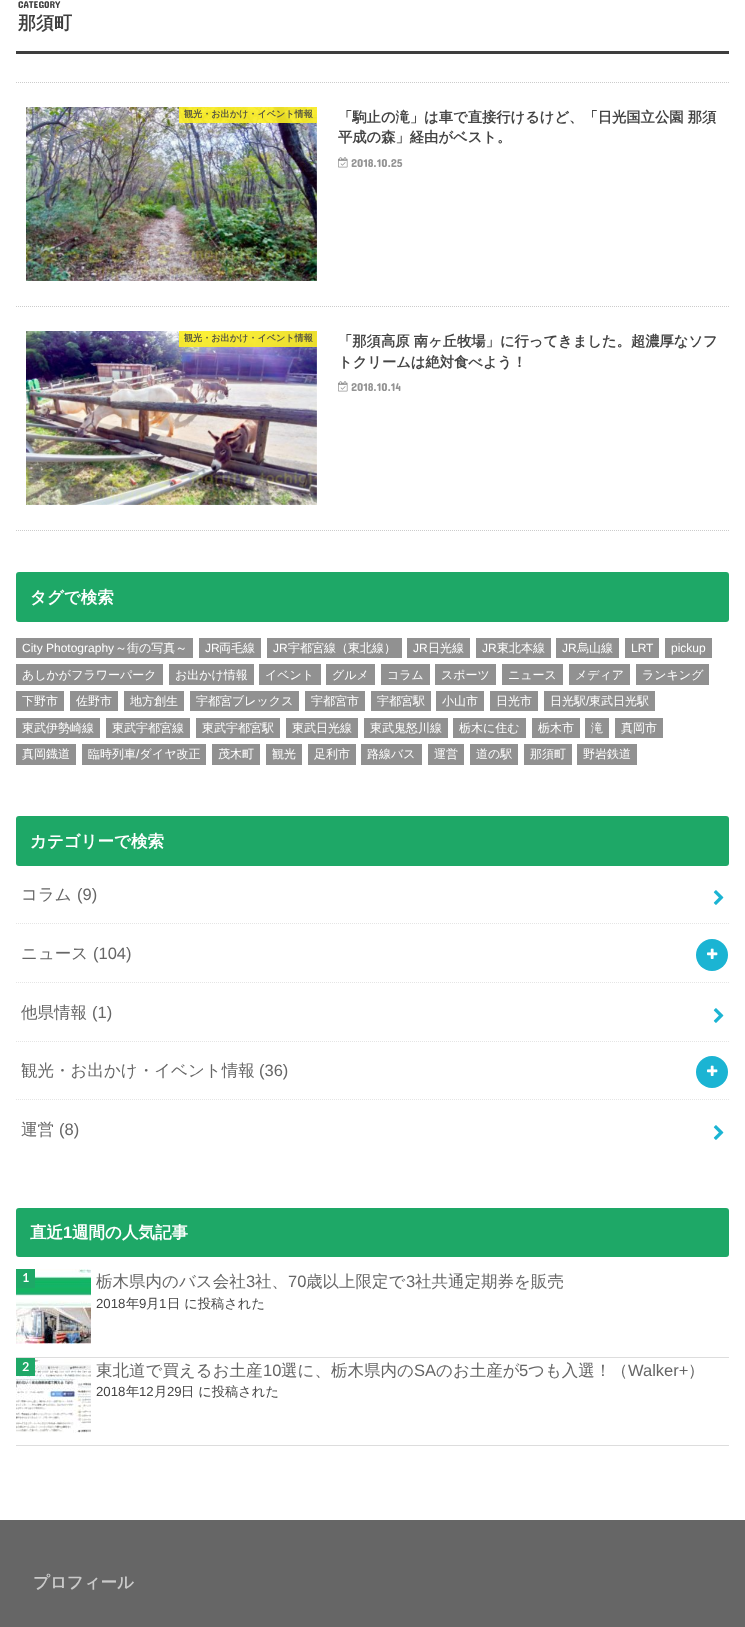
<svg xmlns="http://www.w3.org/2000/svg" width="745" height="1627">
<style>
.a{font:10px Concert One;fill:#3e3e3e}
.b{font:bold 18px WenQuanYi Zen Hei;fill:#3e3e3e}
.c{font:bold 9.1px WenQuanYi Zen Hei;fill:#555442}
.d{font:bold 14.3px WenQuanYi Zen Hei;fill:#444}
.e{font:11.5px Concert One;fill:#949494}
.f{font:bold 16.5px WenQuanYi Zen Hei;fill:#fff}
.g{font:12px Liberation Sans;fill:#fff}
.h{font:500 12px WenQuanYi Zen Hei;fill:#fff}
.i{font:500 16.5px WenQuanYi Zen Hei;fill:#666}
.j{font:16.5px Liberation Sans;fill:#666}
.k{font:bold 16.5px Liberation Sans;fill:#fff}
.l{font:bold 12px Lato;fill:#fff}
.m{font:13.25px Liberation Sans;fill:#444}
.n{font:500 13.25px WenQuanYi Zen Hei;fill:#444}
.o{font:bold 16.5px WenQuanYi Zen Hei;fill:#cacaca}
</style>
<rect width="100%" height="100%" fill="#fff"/>
<path fill="#3e3e3e" d="M16 51h713v3H16z"/>
<path fill="none" stroke="#ccc" stroke-dasharray="1 1" d="M16 82.5h713"/>
<path fill="none" stroke="#ccc" stroke-dasharray="1 1" d="M16 306.5h713"/>
<image href="1.png" x="26" y="107" width="291" height="174"/>
<path fill="#fcee21e6" d="M179 107h138v16H179z"/>
<image href="2.png" x="338" y="157" width="10" height="11"/>
<path fill="none" stroke="#ccc" stroke-dasharray="1 1" d="M16 530.5h713"/>
<image href="3.png" x="26" y="331" width="291" height="174"/>
<path fill="#fcee21e6" d="M179 331h138v16H179z"/>
<image href="2.png" x="338" y="381" width="10" height="11"/>
<rect fill="#1ea867" x="16" y="572" width="713" height="50" rx="3"/>
<path fill="#919191" d="M16 638h177v20H16z"/>
<path fill="#919191" d="M199 638h62v20H199z"/>
<path fill="#919191" d="M267 638h135v20H267z"/>
<path fill="#919191" d="M407 638h63v20H407z"/>
<path fill="#919191" d="M476 638h75v20H476z"/>
<path fill="#919191" d="M556 638h63v20H556z"/>
<path fill="#919191" d="M625 638h34v20H625z"/>
<path fill="#919191" d="M665 638h47v20H665z"/>
<path fill="#919191" d="M16 664h147v21H16z"/>
<path fill="#919191" d="M169 664h85v21H169z"/>
<path fill="#919191" d="M259 664h62v21H259z"/>
<path fill="#919191" d="M326 664h49v21H326z"/>
<path fill="#919191" d="M381 664h49v21H381z"/>
<path fill="#919191" d="M435 664h61v21H435z"/>
<path fill="#919191" d="M502 664h61v21H502z"/>
<path fill="#919191" d="M569 664h61v21H569z"/>
<path fill="#919191" d="M636 664h73v21H636z"/>
<path fill="#919191" d="M16 691h48v20H16z"/>
<path fill="#919191" d="M70 691h48v20H70z"/>
<path fill="#919191" d="M124 691h60v20H124z"/>
<path fill="#919191" d="M190 691h109v20H190z"/>
<path fill="#919191" d="M305 691h60v20H305z"/>
<path fill="#919191" d="M371 691h60v20H371z"/>
<path fill="#919191" d="M436 691h48v20H436z"/>
<path fill="#919191" d="M490 691h48v20H490z"/>
<path fill="#919191" d="M544 691h111v20H544z"/>
<path fill="#919191" d="M16 718h84v20H16z"/>
<path fill="#919191" d="M106 718h84v20H106z"/>
<path fill="#919191" d="M196 718h84v20H196z"/>
<path fill="#919191" d="M286 718h72v20H286z"/>
<path fill="#919191" d="M364 718h84v20H364z"/>
<path fill="#919191" d="M453 718h73v20H453z"/>
<path fill="#919191" d="M532 718h48v20H532z"/>
<path fill="#919191" d="M585 718h24v20H585z"/>
<path fill="#919191" d="M615 718h48v20H615z"/>
<path fill="#919191" d="M16 744h60v21H16z"/>
<path fill="#919191" d="M82 744h124v21H82z"/>
<path fill="#919191" d="M212 744h48v21H212z"/>
<path fill="#919191" d="M266 744h36v21H266z"/>
<path fill="#919191" d="M308 744h48v21H308z"/>
<path fill="#919191" d="M361 744h61v21H361z"/>
<path fill="#919191" d="M428 744h36v21H428z"/>
<path fill="#919191" d="M470 744h48v21H470z"/>
<path fill="#919191" d="M524 744h48v21H524z"/>
<path fill="#919191" d="M577 744h60v21H577z"/>
<rect fill="#1ea867" x="16" y="816" width="713" height="50" rx="3"/>
<path fill="none" stroke="#e5e5e5" stroke-dasharray="1 1" d="M16 923.5h713"/>
<image href="4.png" x="713" y="890" width="11" height="15"/>
<path fill="none" stroke="#e5e5e5" stroke-dasharray="1 1" d="M16 982.5h713"/>
<circle fill="#1bb4d3" cx="712" cy="955" r="16"/>
<image href="5.png" x="707" y="948" width="11" height="11"/>
<path fill="none" stroke="#e5e5e5" stroke-dasharray="1 1" d="M16 1041.5h713"/>
<image href="4.png" x="713" y="1008" width="11" height="15"/>
<path fill="none" stroke="#e5e5e5" stroke-dasharray="1 1" d="M16 1099.5h713"/>
<circle fill="#1bb4d3" cx="712" cy="1072" r="16"/>
<image href="5.png" x="707" y="1065" width="11" height="11"/>
<image href="4.png" x="713" y="1125" width="11" height="15"/>
<rect fill="#1ea867" x="16" y="1208" width="713" height="49" rx="3"/>
<path fill="#ddd" d="M16 1357h713v1H16z"/>
<image href="6.png" x="16" y="1269" width="75" height="75"/>
<path fill="#1ea867" d="M16 1269h19v19H16z"/>
<path fill="#ddd" d="M16 1445h713v1H16z"/>
<image href="7.png" x="16" y="1358" width="75" height="75"/>
<path fill="#1ea867" d="M16 1358h19v18H16z"/>
<path fill="#666" d="M0 1520h745v107H0z"/>
<text class="a" x="18" y="8">CATEGORY</text>
<text class="b" x="18" y="29">那須町</text>
<text class="c" x="184" y="117">観光・お出かけ・イベント情報</text>
<text class="d" x="338" y="122">「駒止の滝」は車で直接行けるけど、「日光国立公園 那須</text>
<text class="d" x="338" y="142">平成の森」経由がベスト。</text>
<text class="e" x="351" y="167">2018.10.25</text>
<text class="c" x="184" y="341">観光・お出かけ・イベント情報</text>
<text class="d" x="338" y="346">「那須高原 南ヶ丘牧場」に行ってきました。超濃厚なソフ</text>
<text class="d" x="338" y="367">トクリームは絶対食べよう！</text>
<text class="e" x="351" y="391">2018.10.14</text>
<text class="f" x="30" y="603">タグで検索</text>
<text class="g" x="22" y="652">City Photography</text>
<text class="h" x="115" y="652">～街の写真～</text>
<text class="g" x="205" y="652">JR</text>
<text class="h" x="219" y="652">両毛線</text>
<text class="g" x="273" y="652">JR</text>
<text class="h" x="288" y="652">宇都宮線（東北線）</text>
<text class="g" x="413" y="652">JR</text>
<text class="h" x="428" y="652">日光線</text>
<text class="g" x="482" y="652">JR</text>
<text class="h" x="497" y="652">東北本線</text>
<text class="g" x="562" y="652">JR</text>
<text class="h" x="577" y="652">烏山線</text>
<text class="g" x="631" y="652">LRT</text>
<text class="g" x="671" y="652">pickup</text>
<text class="h" x="22" y="679">あしかがフラワーパーク</text>
<text class="h" x="175" y="679">お出かけ情報</text>
<text class="h" x="265" y="679">イベント</text>
<text class="h" x="332" y="679">グルメ</text>
<text class="h" x="387" y="679">コラム</text>
<text class="h" x="441" y="679">スポーツ</text>
<text class="h" x="508" y="679">ニュース</text>
<text class="h" x="575" y="679">メディア</text>
<text class="h" x="642" y="679">ランキング</text>
<text class="h" x="22" y="705">下野市</text>
<text class="h" x="76" y="705">佐野市</text>
<text class="h" x="130" y="705">地方創生</text>
<text class="h" x="196" y="705">宇都宮ブレックス</text>
<text class="h" x="311" y="705">宇都宮市</text>
<text class="h" x="377" y="705">宇都宮駅</text>
<text class="h" x="442" y="705">小山市</text>
<text class="h" x="496" y="705">日光市</text>
<text class="h" x="550" y="705">日光駅</text>
<text class="g" x="586" y="705">/</text>
<text class="h" x="589" y="705">東武日光駅</text>
<text class="h" x="22" y="732">東武伊勢崎線</text>
<text class="h" x="112" y="732">東武宇都宮線</text>
<text class="h" x="202" y="732">東武宇都宮駅</text>
<text class="h" x="292" y="732">東武日光線</text>
<text class="h" x="370" y="732">東武鬼怒川線</text>
<text class="h" x="459" y="732">栃木に住む</text>
<text class="h" x="538" y="732">栃木市</text>
<text class="h" x="591" y="732">滝</text>
<text class="h" x="621" y="732">真岡市</text>
<text class="h" x="22" y="758">真岡鐡道</text>
<text class="h" x="88" y="758">臨時列車 ダイヤ改正</text>
<text class="g" x="136" y="758">/</text>
<text class="h" x="218" y="758">茂木町</text>
<text class="h" x="272" y="758">観光</text>
<text class="h" x="314" y="758">足利市</text>
<text class="h" x="367" y="758">路線バス</text>
<text class="h" x="434" y="758">運営</text>
<text class="h" x="476" y="758">道の駅</text>
<text class="h" x="530" y="758">那須町</text>
<text class="h" x="583" y="758">野岩鉄道</text>
<text class="f" x="30" y="847">カテゴリーで検索</text>
<text class="i" x="21" y="900">コラム</text>
<text class="j" x="77" y="900">(9)</text>
<text class="i" x="21" y="959">ニュース</text>
<text class="j" x="93" y="959">(104)</text>
<text class="i" x="21" y="1018">他県情報</text>
<text class="j" x="92" y="1018">(1)</text>
<text class="i" x="21" y="1076">観光・お出かけ・イベント情報</text>
<text class="j" x="259" y="1076">(36)</text>
<text class="i" x="21" y="1135">運営</text>
<text class="j" x="59" y="1135">(8)</text>
<text class="f" x="30" y="1238">直近</text>
<text class="k" x="63" y="1238">1</text>
<text class="f" x="72" y="1238">週間の人気記事</text>
<text class="l" x="22" y="1282">1</text>
<text class="i" x="96" y="1287">栃木県内のバス会社</text>
<text class="j" x="246" y="1287">3</text>
<text class="i" x="255" y="1287">社、</text>
<text class="j" x="288" y="1287">70</text>
<text class="i" x="306" y="1287">歳以上限定で</text>
<text class="j" x="406" y="1287">3</text>
<text class="i" x="415" y="1287">社共通定期券を販売</text>
<text class="m" x="96" y="1308">2018</text>
<text class="n" x="126" y="1308">年</text>
<text class="m" x="139" y="1308">9</text>
<text class="n" x="146" y="1308">月</text>
<text class="m" x="159" y="1308">1</text>
<text class="n" x="167" y="1308">日 に投稿された</text>
<text class="l" x="22" y="1371">2</text>
<text class="i" x="96" y="1376">東北道で買えるお土産</text>
<text class="j" x="263" y="1376">10</text>
<text class="i" x="281" y="1376">選に、栃木県内の</text>
<text class="j" x="414" y="1376">SA</text>
<text class="i" x="436" y="1376">のお土産が</text>
<text class="j" x="519" y="1376">5</text>
<text class="i" x="528" y="1376">つも入選！（</text>
<text class="j" x="628" y="1376">Walker+</text>
<text class="i" x="688" y="1376">）</text>
<text class="m" x="96" y="1396">2018</text>
<text class="n" x="126" y="1396">年</text>
<text class="m" x="139" y="1396">12</text>
<text class="n" x="154" y="1396">月</text>
<text class="m" x="167" y="1396">29</text>
<text class="n" x="181" y="1396">日 に投稿された</text>
<text class="o" x="33" y="1588">プロフィール</text>
</svg>
